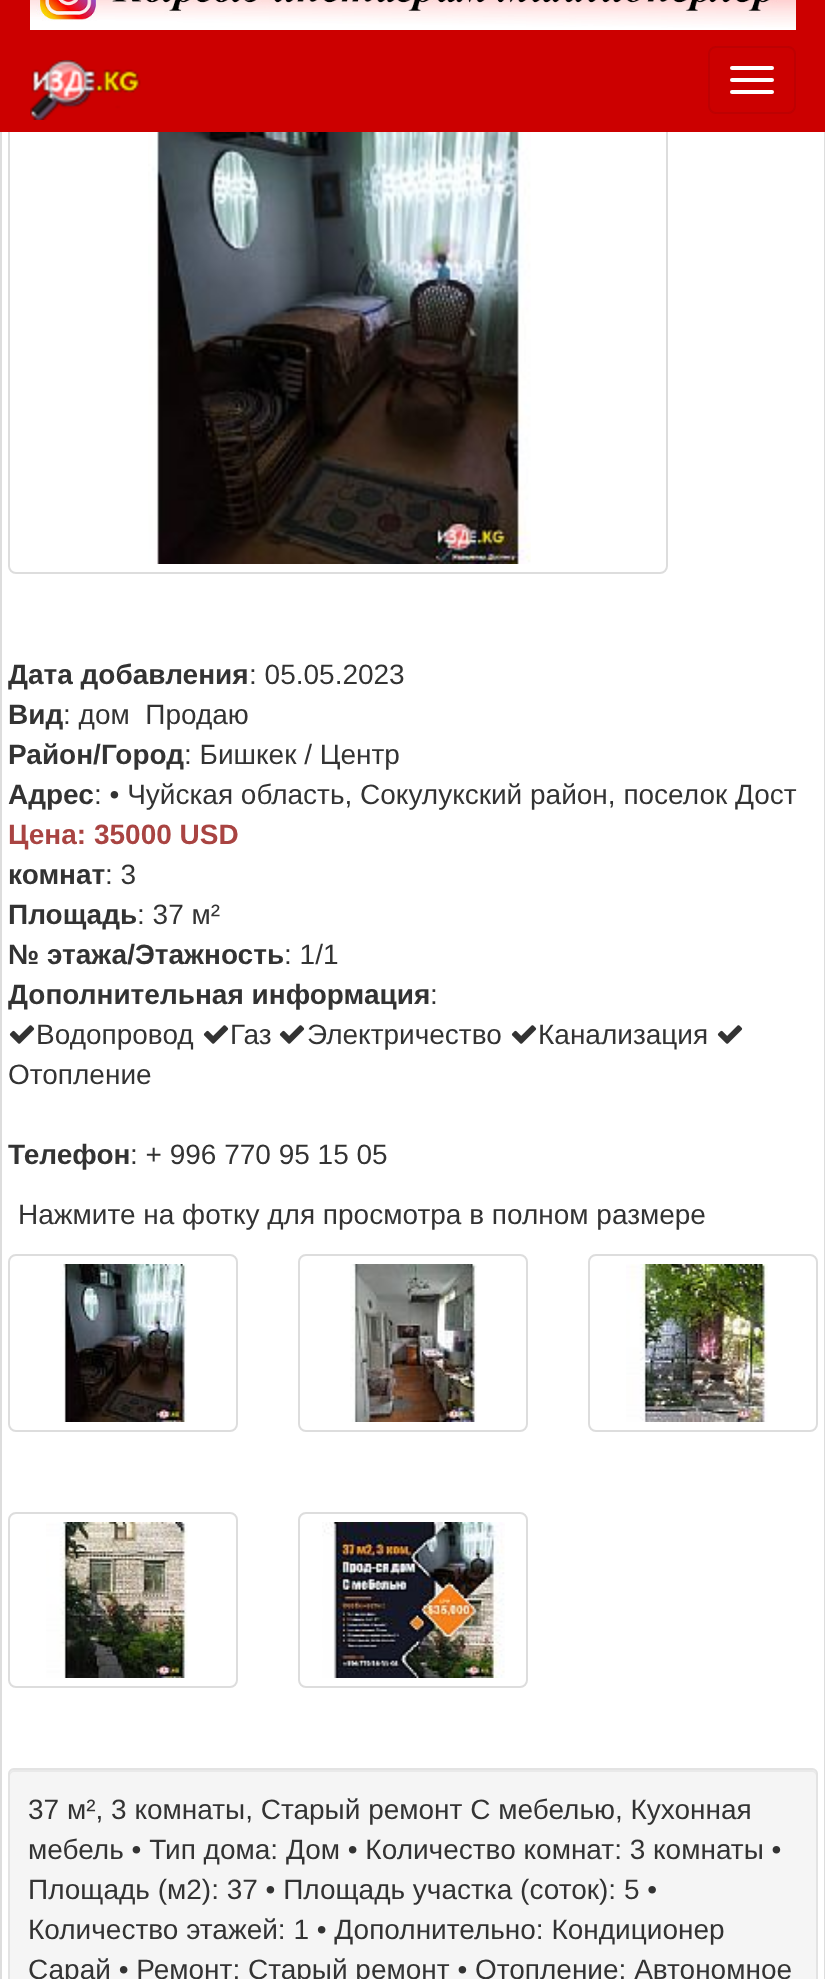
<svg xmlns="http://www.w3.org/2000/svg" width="825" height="1979">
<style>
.a{font:bold 28px Liberation Sans;fill:#333}
.b{font:28px Liberation Sans;fill:#333}
.c{font:bold 28px Liberation Sans;fill:#a94442}
</style>
<rect width="100%" height="100%" fill="#fff"/>
<path fill="none" stroke="#ddd" stroke-width="2" d="M1 -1h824v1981H1z"/>
<rect fill="none" stroke="#ddd" stroke-width="2" x="9" y="75" width="658" height="498" rx="7"/>
<path fill="#c00" d="M0 0h825v132H0z"/>
<image href="1.png" x="30" y="0" width="766" height="30"/>
<image href="2.png" x="30" y="60" width="111" height="60"/>
<rect fill="none" stroke="#bd0102" stroke-width="2" x="709" y="47" width="86" height="66" rx="7"/>
<rect fill="#fff" x="730" y="66" width="44" height="4" rx="2"/>
<rect fill="#fff" x="730" y="78" width="44" height="4" rx="2"/>
<rect fill="#fff" x="730" y="90" width="44" height="4" rx="2"/>
<image href="3.png" x="148" y="132" width="383" height="432"/>
<image href="4.png" x="9" y="1025" width="26" height="19"/>
<image href="4.png" x="203" y="1025" width="26" height="19"/>
<image href="4.png" x="279" y="1025" width="26" height="19"/>
<image href="4.png" x="511" y="1025" width="26" height="19"/>
<image href="4.png" x="717" y="1025" width="26" height="19"/>
<rect fill="none" stroke="#ddd" stroke-width="2" x="9" y="1255" width="228" height="176" rx="7"/>
<image href="5.png" x="60" y="1264" width="127" height="158"/>
<rect fill="none" stroke="#ddd" stroke-width="2" x="299" y="1255" width="228" height="176" rx="7"/>
<image href="6.png" x="350" y="1264" width="127" height="158"/>
<rect fill="none" stroke="#ddd" stroke-width="2" x="589" y="1255" width="228" height="176" rx="7"/>
<image href="7.png" x="626" y="1264" width="142" height="158"/>
<rect fill="none" stroke="#ddd" stroke-width="2" x="9" y="1513" width="228" height="174" rx="7"/>
<image href="8.png" x="46" y="1522" width="142" height="156"/>
<rect fill="none" stroke="#ddd" stroke-width="2" x="299" y="1513" width="228" height="174" rx="7"/>
<image href="9.png" x="322" y="1522" width="183" height="156"/>
<rect fill="#f5f5f5" x="8" y="1768" width="810" height="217" rx="6"/>
<path fill="#e9e9e9" d="M14 1772h798c2 0 4 2 4 4v-2c0-2-2-4-4-4h-798c-2 0-4 2-4 4v2c0-2 2-4 4-4z"/>
<rect fill="none" stroke="#e3e3e3" stroke-width="2" x="9" y="1769" width="808" height="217" rx="5"/>
<text class="a" x="8" y="684">Дата добавления</text>
<text class="b" x="249" y="684">: 05.05.2023</text>
<text class="a" x="8" y="724">Вид</text>
<text class="b" xml:space="preserve" x="63" y="724">: дом  Продаю</text>
<text class="a" x="8" y="764">Район/Город</text>
<text class="b" x="184" y="764">: Бишкек / Центр</text>
<text class="a" x="8" y="804">Адрес</text>
<text class="b" x="94" y="804">: • Чуйская область, Сокулукский район, поселок Дост</text>
<text class="c" x="8" y="844">Цена: 35000 USD</text>
<text class="a" x="8" y="884">комнат</text>
<text class="b" x="105" y="884">: 3</text>
<text class="a" x="8" y="924">Площадь</text>
<text class="b" x="137" y="924">: 37 м²</text>
<text class="a" x="8" y="964">№ этажа/Этажность</text>
<text class="b" x="284" y="964">: 1/1</text>
<text class="a" x="8" y="1004">Дополнительная информация</text>
<text class="b" x="430" y="1004">:</text>
<text class="b" x="36" y="1044">Водопровод</text>
<text class="b" x="230" y="1044">Газ</text>
<text class="b" x="307" y="1044">Электричество</text>
<text class="b" x="538" y="1044">Канализация</text>
<text class="b" x="8" y="1084">Отопление</text>
<text class="a" x="8" y="1164">Телефон</text>
<text class="b" x="130" y="1164">: + 996 770 95 15 05</text>
<text class="b" x="18" y="1224">Нажмите на фотку для просмотра в полном размере</text>
<text class="b" x="28" y="1819">37 м², 3 комнаты, Старый ремонт С мебелью, Кухонная</text>
<text class="b" x="28" y="1859">мебель • Тип дома: Дом • Количество комнат: 3 комнаты •</text>
<text class="b" x="28" y="1899">Площадь (м2): 37 • Площадь участка (соток): 5 •</text>
<text class="b" x="28" y="1939">Количество этажей: 1 • Дополнительно: Кондиционер</text>
<text class="b" x="28" y="1979">Сарай • Ремонт: Старый ремонт • Отопление: Автономное</text>
</svg>
